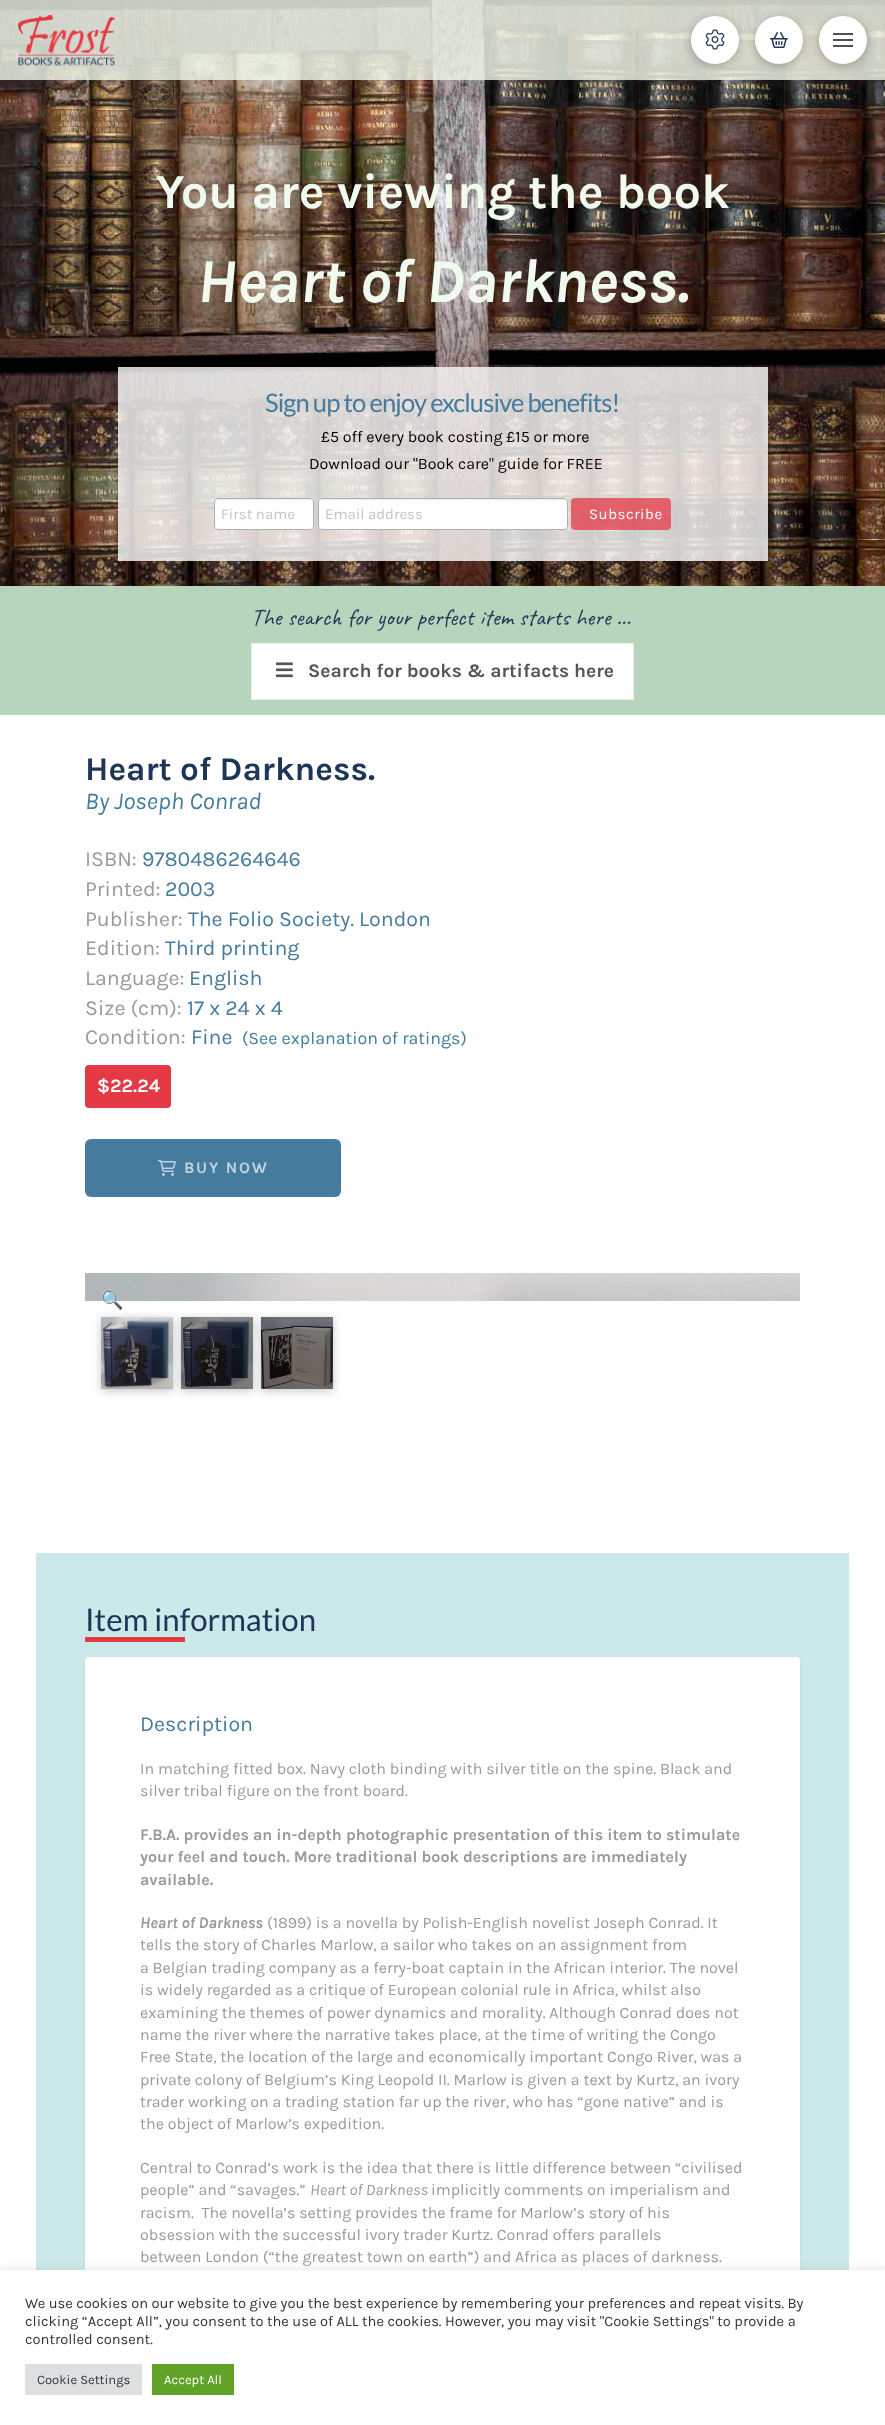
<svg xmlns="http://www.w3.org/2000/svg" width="885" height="2425">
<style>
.a{font:bold 48.75px Karla;fill:#f1faee}
.b{font:italic bold 62.5px Karla;fill:#f1faee}
.c{font:25.6px Lato;letter-spacing:-0.9px;fill:#457b9d}
.d{font:16px Karla;fill:#000}
.e{font:15px Karla;fill:#c5c5c5}
.f{font:15px Karla;letter-spacing:0.5px;fill:#fff}
.g{font:24px Caveat;fill:#1d3557}
.h{font:bold 19.25px Karla;fill:#555}
.i{font:bold 33.25px Karla;fill:#1d3557}
.j{font:italic 24.25px Karla;fill:#457b9d}
.k{font:21.4px Karla;fill:#999}
.l{font:21.4px Karla;fill:#457b9d}
.m{font:17.8px Karla;fill:#457b9d}
.n{font:bold 19px Karla;fill:#fff}
.o{font:bold 16px Karla;letter-spacing:1.75px;fill:#c0d2de}
.p{font:18px Noto Color Emoji;fill:#457b9d}
.q{font:31.25px Lato;fill:#1d3557}
.r{font:16px Karla;fill:#999}
.s{font:bold 16px Karla;fill:#999}
.t{font:italic bold 16px Karla;fill:#999}
.u{font:italic 16px Karla;fill:#999}
.v{font:14.67px Karla;fill:#333}
.w{font:13px Karla;fill:#333}
.x{font:13px Karla;fill:#fff}
</style>
<rect width="100%" height="100%" fill="#fff"/>
<image href="4.png" x="0" y="0" width="885" height="586"/>
<path fill="#f1faeecc" d="M0 0h885v80H0z"/>
<image href="1.png" x="18" y="15" width="97" height="51"/>
<rect fill="#00000040" filter="blur(5px)" x="691" y="18" width="48" height="48" rx="24"/>
<circle fill="#fff" cx="715" cy="40" r="24"/>
<image href="2.png" x="705" y="29" width="20" height="21"/>
<rect fill="#00000040" filter="blur(5px)" x="755" y="18" width="48" height="48" rx="24"/>
<circle fill="#fff" cx="779" cy="40" r="24"/>
<image href="3.png" x="770" y="32" width="18" height="16"/>
<rect fill="#00000040" filter="blur(5px)" x="819" y="18" width="48" height="48" rx="24"/>
<circle fill="#fff" cx="843" cy="40" r="24"/>
<path fill="#505050" d="M833 33h20v2H833z"/>
<path fill="#505050" d="M833 39h20v2H833z"/>
<path fill="#505050" d="M833 45h20v2H833z"/>
<path fill="#ffffffcc" d="M118 367h650v194H118z"/>
<rect fill="#fff" x="214" y="498" width="100" height="32" rx="4"/>
<path fill="#ececec" d="M218 500h92c2 0 3 1 3 3c0-8-15-4-18-4h-62c-3 0-18-4-18 4c0-2 1-3 3-3z"/>
<rect fill="none" stroke="#abb0b2" x="214.5" y="498.5" width="99" height="31" rx="3.5"/>
<rect fill="#fff" x="318" y="498" width="250" height="32" rx="4"/>
<path fill="#ececec" d="M322 500h242c2 0 3 1 3 3c0-2-1-4-3-4h-242c-2 0-3 2-3 4c0-2 1-3 3-3z"/>
<rect fill="none" stroke="#abb0b2" x="318.5" y="498.5" width="249" height="31" rx="3.5"/>
<rect fill="#e63946bf" x="571" y="498" width="100" height="32" rx="4"/>
<path fill="#b7d5bd" d="M0 586h885v129H0z"/>
<path fill="#fff" stroke="#eee" d="M251.5 643.5h382v56H251.5z"/>
<image href="5.png" x="276" y="662" width="17" height="16"/>
<rect fill="#e63946" x="85" y="1065" width="86" height="43" rx="4"/>
<rect fill="#457b9d" x="85" y="1139" width="256" height="58" rx="6"/>
<image href="6.png" x="158" y="1160" width="18" height="16"/>
<image href="7.png" x="85" y="1273" width="715" height="28"/>
<path fill="#00000038" filter="blur(5px)" d="M101 1319h72v72H101z"/>
<image href="8.png" x="101" y="1317" width="72" height="72"/>
<path fill="#00000038" filter="blur(5px)" d="M181 1319h72v72H181z"/>
<path fill="#000" d="M181 1317h72v72H181z"/>
<path fill="#00000038" filter="blur(5px)" d="M261 1319h72v72H261z"/>
<image href="9.png" x="181" y="1317" width="72" height="72"/>
<path fill="#000" d="M261 1317h72v72H261z"/>
<image href="10.png" x="261" y="1317" width="72" height="72"/>
<path fill="#cbe9ea" d="M36 1553h813v717H36z"/>
<path fill="#e63946" d="M85 1637h100v5H85z"/>
<rect fill="#0000000f" filter="blur(2.5px)" x="85" y="1659" width="715" height="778" rx="4"/>
<rect fill="#fff" x="85" y="1657" width="715" height="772" rx="4"/>
<path fill="#acabab4d" filter="blur(5px)" d="M0 2269h885v155H0z"/>
<path fill="#fff" d="M0 2270h885v155H0z"/>
<path fill="#dedfe0" d="M25 2364h117v31H25z"/>
<path fill="#61a229" d="M152 2364h82v31H152z"/>
<text class="a" x="156" y="208">You are viewing the book</text>
<text class="b" x="197" y="302">Heart of Darkness.</text>
<text class="c" x="265" y="412">Sign up to enjoy exclusive benefits!</text>
<text class="d" x="321" y="442">£5 off every book costing £15 or more</text>
<text class="d" x="309" y="469">Download our "Book care" guide for FREE</text>
<text class="e" x="221" y="519">First name</text>
<text class="e" x="325" y="519">Email address</text>
<text class="f" x="589" y="519">Subscribe</text>
<text class="g" x="251" y="625">The search for your perfect item starts here ...</text>
<text class="h" x="308" y="677">Search for books &amp; artifacts here</text>
<text class="i" x="85" y="780">Heart of Darkness.</text>
<text class="j" x="85" y="809">By Joseph Conrad</text>
<text class="k" x="85" y="866">ISBN:</text>
<text class="l" x="142" y="866">9780486264646</text>
<text class="k" x="85" y="896">Printed:</text>
<text class="l" x="165" y="896">2003</text>
<text class="k" x="85" y="926">Publisher:</text>
<text class="l" x="188" y="926">The Folio Society. London</text>
<text class="k" x="85" y="955">Edition:</text>
<text class="l" x="165" y="955">Third printing</text>
<text class="k" x="85" y="985">Language:</text>
<text class="l" x="189" y="985">English</text>
<text class="k" x="85" y="1015">Size (cm):</text>
<text class="l" x="187" y="1015">17 x 24 x 4</text>
<text class="k" x="85" y="1044">Condition:</text>
<text class="l" x="191" y="1044">Fine</text>
<text class="m" x="242" y="1044">(See explanation of ratings)</text>
<text class="n" x="97" y="1092">$22.24</text>
<text class="o" x="184" y="1173">BUY NOW</text>
<text class="p" x="101" y="1306">🔍</text>
<text class="q" x="85" y="1631">Item information</text>
<text class="l" x="140" y="1731">Description</text>
<text class="r" x="140" y="1774">In matching fitted box. Navy cloth binding with silver title on the spine. Black and</text>
<text class="r" x="140" y="1796">silver tribal figure on the front board.</text>
<text class="s" x="140" y="1840">F.B.A. provides an in-depth photographic presentation of this item to stimulate</text>
<text class="s" x="140" y="1862">your feel and touch. More traditional book descriptions are immediately</text>
<text class="s" x="140" y="1885">available.</text>
<text class="t" x="140" y="1928">Heart of Darkness</text>
<text class="r" x="267" y="1928">(1899) is a novella by Polish-English novelist Joseph Conrad. It</text>
<text class="r" x="140" y="1950">tells the story of Charles Marlow, a sailor who takes on an assignment from</text>
<text class="r" x="140" y="1973">a Belgian trading company as a ferry-boat captain in the African interior. The novel</text>
<text class="r" x="140" y="1995">is widely regarded as a critique of European colonial rule in Africa, whilst also</text>
<text class="r" x="140" y="2018">examining the themes of power dynamics and morality. Although Conrad does not</text>
<text class="r" x="140" y="2040">name the river where the narrative takes place, at the time of writing the Congo</text>
<text class="r" x="140" y="2062">Free State, the location of the large and economically important Congo River, was a</text>
<text class="r" x="140" y="2085">private colony of Belgium’s King Leopold II. Marlow is given a text by Kurtz, an ivory</text>
<text class="r" x="140" y="2107">trader working on a trading station far up the river, who has “gone native” and is</text>
<text class="r" x="140" y="2129">the object of Marlow’s expedition.</text>
<text class="r" x="140" y="2173">Central to Conrad’s work is the idea that there is little difference between “civilised</text>
<text class="r" x="140" y="2195">people” and “savages.”</text>
<text class="u" x="310" y="2195">Heart of Darkness</text>
<text class="r" x="431" y="2195">implicitly comments on imperialism and</text>
<text class="r" xml:space="preserve" x="140" y="2218">racism.  The novella’s setting provides the frame for Marlow’s story of his</text>
<text class="r" x="140" y="2240">obsession with the successful ivory trader Kurtz. Conrad offers parallels</text>
<text class="r" x="140" y="2262">between London (“the greatest town on earth”) and Africa as places of darkness.</text>
<text class="v" x="25" y="2308">We use cookies on our website to give you the best experience by remembering your preferences and repeat visits. By</text>
<text class="v" x="25" y="2326">clicking “Accept All”, you consent to the use of ALL the cookies. However, you may visit "Cookie Settings" to provide a</text>
<text class="v" x="25" y="2344">controlled consent.</text>
<text class="w" x="37" y="2384">Cookie Settings</text>
<text class="x" x="164" y="2384">Accept All</text>
</svg>
